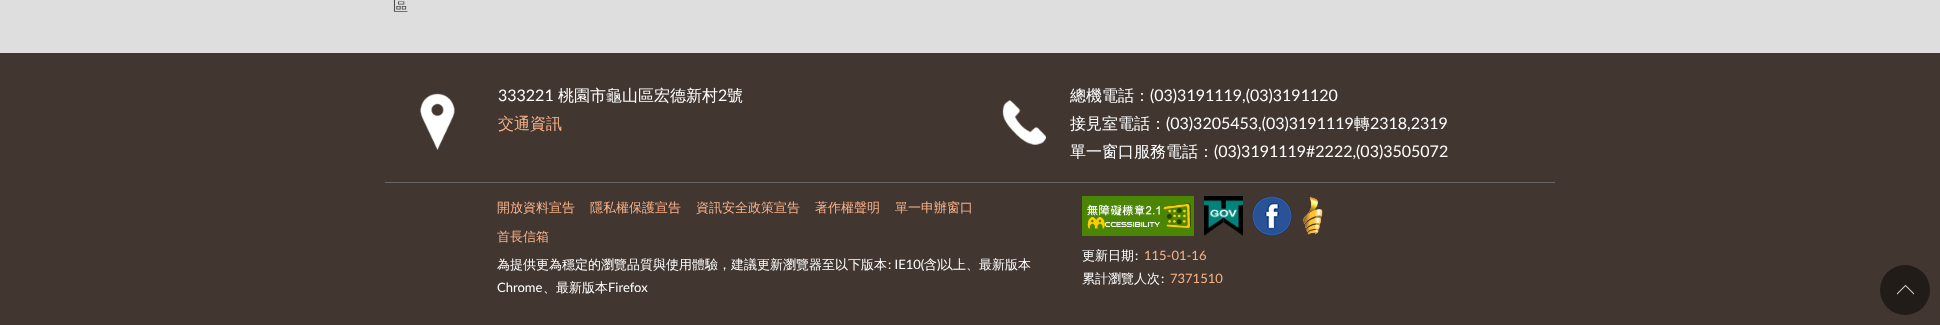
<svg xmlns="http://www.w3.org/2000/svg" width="1940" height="325">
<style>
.a{font:500 15px WenQuanYi Zen Hei;fill:#4d4d4d}
.b{font:16px Lato;fill:#fff}
.c{font:500 16px WenQuanYi Zen Hei;fill:#fff}
.d{font:500 16px WenQuanYi Zen Hei;fill:#fab289}
.e{font:500 13px WenQuanYi Zen Hei;fill:#fab289}
.f{font:500 13px WenQuanYi Zen Hei;fill:#fff}
.g{font:13px Lato;fill:#fff}
.h{font:13px Lato;fill:#fab289}
</style>
<rect width="100%" height="100%" fill="#413630"/>
<path fill="#dedede" d="M0 0h1940v53H0z"/>
<image href="1.png" x="420" y="93" width="35" height="57"/>
<image href="2.png" x="1002" y="100" width="44" height="45"/>
<path fill="#666" d="M385 182h1170v1H385z"/>
<image href="3.png" x="1082" y="196" width="112" height="40"/>
<image href="4.png" x="1204" y="196" width="39" height="40"/>
<image href="5.png" x="1252" y="196" width="40" height="40"/>
<image href="6.png" x="1302" y="197" width="21" height="38"/>
<circle fill="#221c19" cx="1905" cy="290" r="25"/>
<image href="7.png" x="1897" y="285" width="17" height="10"/>
<text class="a" x="393" y="11">區</text>
<text class="b" x="498" y="101">333221</text>
<text class="c" x="558" y="101">桃園市龜山區宏德新村</text>
<text class="b" x="718" y="101">2</text>
<text class="c" x="727" y="101">號</text>
<text class="d" x="498" y="129">交通資訊</text>
<text class="c" x="1070" y="101">總機電話：</text>
<text class="b" x="1150" y="101">(03)3191119,(03)3191120</text>
<text class="c" x="1070" y="129">接見室電話：</text>
<text class="b" x="1166" y="129">(03)3205453,(03)3191119</text>
<text class="c" x="1354" y="129">轉</text>
<text class="b" x="1370" y="129">2318,2319</text>
<text class="c" x="1070" y="157">單一窗口服務電話：</text>
<text class="b" x="1214" y="157">(03)3191119#2222,(03)3505072</text>
<text class="e" x="497" y="212">開放資料宣告</text>
<text class="e" x="590" y="212">隱私權保護宣告</text>
<text class="e" x="696" y="212">資訊安全政策宣告</text>
<text class="e" x="815" y="212">著作權聲明</text>
<text class="e" x="895" y="212">單一申辦窗口</text>
<text class="e" x="497" y="241">首長信箱</text>
<text class="f" x="497" y="269">為提供更為穩定的瀏覽品質與使用體驗，建議更新瀏覽器至以下版本</text>
<text class="g" x="888" y="269">: IE10(</text>
<text class="f" x="924" y="269">含</text>
<text class="g" x="937" y="269">)</text>
<text class="f" x="940" y="269">以上、最新版本</text>
<text class="g" x="497" y="292">Chrome</text>
<text class="f" x="543" y="292">、最新版本</text>
<text class="g" x="608" y="292">Firefox</text>
<text class="f" x="1082" y="260">更新日期</text>
<text class="g" x="1135" y="260">:</text>
<text class="h" x="1144" y="260">115-01-16</text>
<text class="f" x="1082" y="283">累計瀏覽人次</text>
<text class="g" x="1161" y="283">:</text>
<text class="h" x="1170" y="283">7371510</text>
</svg>
